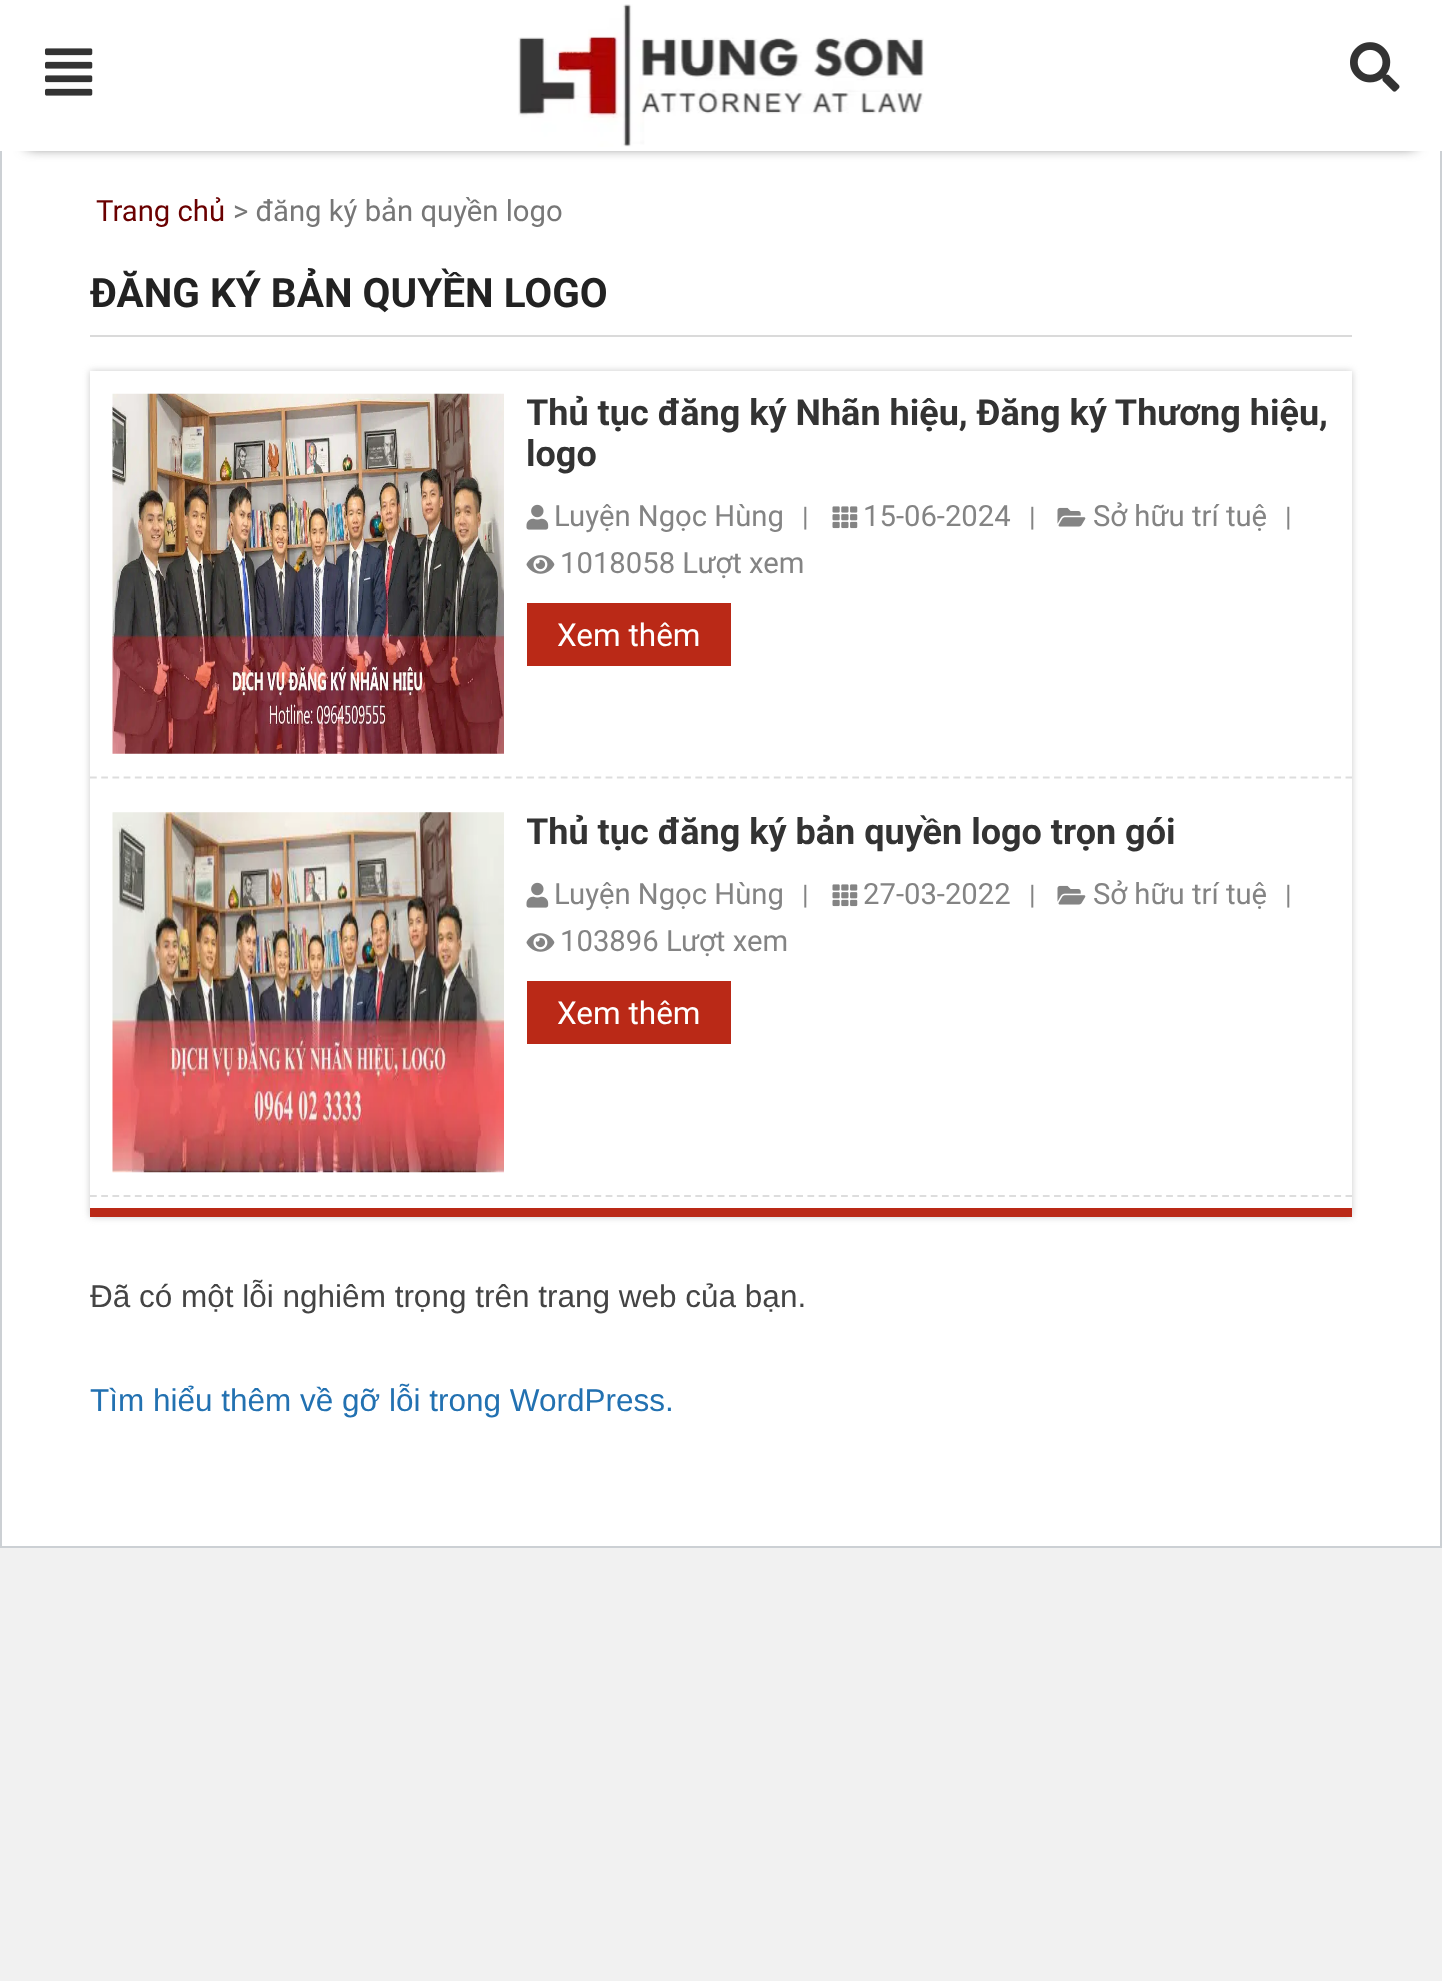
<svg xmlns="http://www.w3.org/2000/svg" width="1442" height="1981">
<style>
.a{font:29.25px Roboto;fill:#6a0000}
.b{font:29.25px Roboto;fill:#777}
.c{font:bold 40.5px Roboto;fill:#222}
.d{font:bold 36px Roboto;fill:#333}
.e{font:29.25px Roboto;fill:#848484}
.f{font:27px Roboto;fill:#848484}
.g{font:31.5px Roboto;fill:#fff}
.h{font:31.5px Liberation Sans;fill:#444}
.i{font:31.5px Liberation Sans;fill:#2271b1}
</style>
<defs>
<clipPath id="clip1"><path d="M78 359h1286v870h-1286zm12 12h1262v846h-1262z" clip-rule="evenodd"/></clipPath>
<clipPath id="clip2"><path d="M527 394h803v81H527z"/></clipPath>
<clipPath id="clip3"><path d="M527 812h803v41H527z"/></clipPath>
</defs>
<rect width="100%" height="100%" fill="#f1f1f1"/>
<path fill="#fff" d="M2 151h1438v1395H2z"/>
<path fill="none" stroke="#ccd0d4" stroke-width="2" d="M1 114h1440v1433H1z"/>
<path fill="#3c3c3c" filter="blur(7px)" d="M27 50h1388v96H27z"/>
<path fill="#fff" d="M0 0h1442v151H0z"/>
<image href="1.png" x="45" y="48" width="48" height="48"/>
<image href="2.png" x="518" y="4" width="406" height="143"/>
<image href="3.png" x="1350" y="42" width="50" height="50"/>
<path fill="#dadada" d="M90 335h1262v2H90z"/>
<g clip-path="url(#clip1)">
<path fill="#cacaca" filter="blur(3.5px)" d="M90 371h1262v846H90z"/>
</g>
<path fill="#ba2917" d="M90 1208h1262v9H90z"/>
<path fill="none" stroke="#ddd" stroke-width="2.2" stroke-dasharray="6.75 4.46" d="M90 777.5h1262"/>
<image href="4.png" x="112" y="393" width="392" height="361"/>
<image href="5.png" x="526" y="504" width="23" height="26"/>
<image href="6.png" x="832" y="506" width="26" height="23"/>
<image href="7.png" x="1057" y="507" width="29" height="20"/>
<image href="8.png" x="526" y="555" width="29" height="19"/>
<path fill="#ba2917" d="M527 603h204v63H527z"/>
<path fill="none" stroke="#ddd" stroke-width="2.2" stroke-dasharray="6.75 4.46" d="M90 1196h1262"/>
<image href="9.png" x="112" y="812" width="392" height="361"/>
<image href="5.png" x="526" y="882" width="23" height="26"/>
<image href="6.png" x="832" y="884" width="26" height="23"/>
<image href="7.png" x="1057" y="885" width="29" height="20"/>
<image href="8.png" x="526" y="933" width="29" height="19"/>
<path fill="#ba2917" d="M527 981h204v63H527z"/>
<text class="a" x="96" y="221">Trang chủ</text>
<text class="b" x="233" y="221">&gt; đăng ký bản quyền logo</text>
<text class="c" x="90" y="307">ĐĂNG KÝ BẢN QUYỀN LOGO</text>
<g clip-path="url(#clip2)">
<text class="d" x="526" y="425">Thủ tục đăng ký Nhãn hiệu, Đăng ký Thương hiệu,</text>
</g>
<text class="d" x="526" y="466">logo</text>
<text class="e" x="554" y="526">Luyện Ngọc Hùng</text>
<text class="f" x="802" y="526">|</text>
<text class="e" x="863" y="526">15-06-2024</text>
<text class="f" x="1029" y="526">|</text>
<text class="e" x="1093" y="526">Sở hữu trí tuệ</text>
<text class="f" x="1285" y="526">|</text>
<text class="e" x="560" y="573">1018058 Lượt xem</text>
<text class="g" x="557" y="646">Xem thêm</text>
<g clip-path="url(#clip3)">
<text class="d" x="526" y="844">Thủ tục đăng ký bản quyền logo trọn gói</text>
</g>
<text class="e" x="554" y="904">Luyện Ngọc Hùng</text>
<text class="f" x="802" y="904">|</text>
<text class="e" x="863" y="904">27-03-2022</text>
<text class="f" x="1029" y="904">|</text>
<text class="e" x="1093" y="904">Sở hữu trí tuệ</text>
<text class="f" x="1285" y="904">|</text>
<text class="e" x="560" y="951">103896 Lượt xem</text>
<text class="g" x="557" y="1024">Xem thêm</text>
<text class="h" x="90" y="1307">Đã có một lỗi nghiêm trọng trên trang web của bạn.</text>
<text class="i" x="90" y="1411">Tìm hiểu thêm về gỡ lỗi trong WordPress.</text>
</svg>
